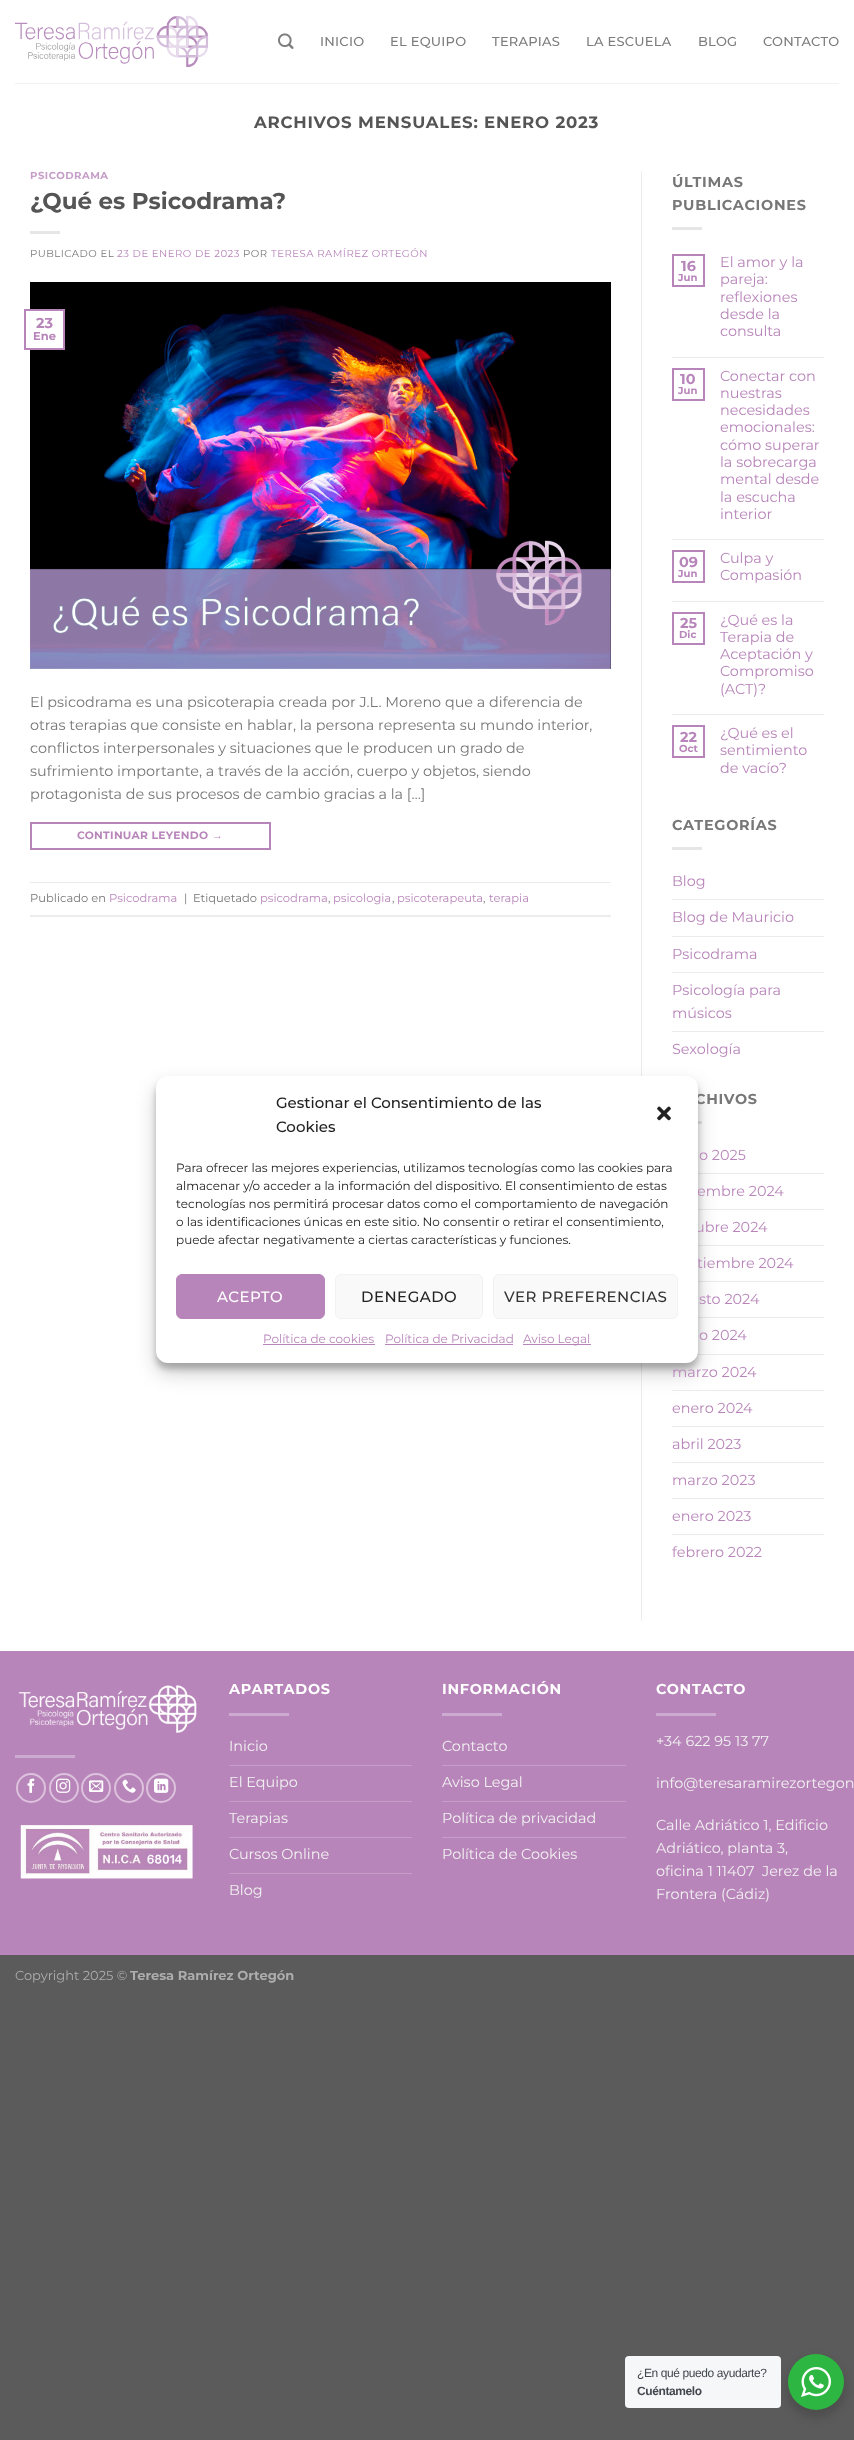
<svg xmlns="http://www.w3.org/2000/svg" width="854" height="2440">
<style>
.a{font:500 13px Montserrat;letter-spacing:0.25px;fill:#7d7d7d}
.b{font:bold 16.6px Montserrat;letter-spacing:0.8px;fill:#555}
.c{font:bold 10.1px Montserrat;letter-spacing:0.5px;fill:#c69dc8}
.d{font:bold 23px Montserrat;fill:#555}
.e{font:10.1px Montserrat;letter-spacing:0.5px;fill:#777}
.f{font:10.1px Montserrat;letter-spacing:0.5px;fill:#b885ba}
.g{font:bold 14.4px Montserrat;fill:#b885ba}
.h{font:bold 11.5px Montserrat;fill:#b885ba}
.i{font:14.4px Montserrat;fill:#777}
.j{font:bold 10.75px Montserrat;letter-spacing:0.3px;fill:#b885ba}
.k{font:bold 10.75px Liberation Sans;letter-spacing:0.3px;fill:#b885ba}
.l{font:11.5px Montserrat;fill:#777}
.m{font:11.5px Montserrat;fill:#b885ba}
.n{font:bold 14.4px Montserrat;letter-spacing:0.75px;fill:#777}
.o{font:bold 10.1px Montserrat;fill:#b885ba}
.p{font:14.4px Montserrat;fill:#b885ba}
.q{font:bold 14.4px Montserrat;letter-spacing:0.75px;fill:#fff}
.r{font:14.4px Montserrat;fill:#f1f1f1}
.s{font:13px Montserrat;fill:#adadad}
.t{font:bold 13px Montserrat;fill:#adadad}
.u{font:500 15px Montserrat;fill:#222}
.v{font:12px Montserrat;fill:#222}
.w{font:500 15px Montserrat;letter-spacing:0.5px;fill:#fff}
.x{font:500 15px Montserrat;letter-spacing:0.5px;fill:#222}
.y{font:500 15px Montserrat;letter-spacing:0.5px;fill:#333}
.z{font:12px Montserrat;fill:#b885ba}
.a1{font:12px Liberation Sans;letter-spacing:-0.4px;fill:#43474e}
.b1{font:bold 12px Liberation Sans;letter-spacing:-0.4px;fill:#43474e}
</style>
<rect width="100%" height="100%" fill="#5b5b5b"/>
<path fill="#fff" d="M0 0h854v1651H0z"/>
<image href="1.png" x="15" y="15" width="194" height="52"/>
<image href="2.png" x="278" y="33" width="16" height="16"/>
<path fill="#f1f1f1" d="M15 83h824v1H15z"/>
<path fill="#e6e6e6" d="M30 231h30v3H30z"/>
<image href="3.png" x="30" y="282" width="581" height="387"/>
<path fill="#fff" d="M30 311h33v37H30z"/>
<path fill="none" stroke="#b885ba" stroke-width="2" d="M25 310h39v39H25z"/>
<path fill="none" stroke="#b885ba" stroke-width="2" d="M31 823h239v26H31z"/>
<path fill="#ececec" d="M30 882h581v1H30z"/>
<path fill="#ececec" d="M30 915h581v2H30z"/>
<path fill="#ececec" d="M641 171h1v1450H641z"/>
<path fill="#e6e6e6" d="M672 227h30v3H672z"/>
<path fill="none" stroke="#b885ba" stroke-width="2" d="M673 255h31v31H673z"/>
<path fill="#ececec" d="M672 357h152v1H672z"/>
<path fill="none" stroke="#b885ba" stroke-width="2" d="M673 369h31v31H673z"/>
<path fill="#ececec" d="M672 539h152v1H672z"/>
<path fill="none" stroke="#b885ba" stroke-width="2" d="M673 551h31v31H673z"/>
<path fill="#ececec" d="M672 601h152v1H672z"/>
<path fill="none" stroke="#b885ba" stroke-width="2" d="M673 613h31v31H673z"/>
<path fill="#ececec" d="M672 714h152v1H672z"/>
<path fill="none" stroke="#b885ba" stroke-width="2" d="M673 726h31v31H673z"/>
<path fill="#e6e6e6" d="M672 847h30v3H672z"/>
<path fill="#ececec" d="M672 899h152v1H672z"/>
<path fill="#ececec" d="M672 936h152v1H672z"/>
<path fill="#ececec" d="M672 972h152v1H672z"/>
<path fill="#ececec" d="M672 1031h152v1H672z"/>
<path fill="#e6e6e6" d="M698 1121h4v3H698z"/>
<path fill="#ececec" d="M698 1173h126v1H698z"/>
<path fill="#ececec" d="M698 1209h126v1H698z"/>
<path fill="#ececec" d="M698 1245h126v1H698z"/>
<path fill="#ececec" d="M698 1281h126v1H698z"/>
<path fill="#ececec" d="M698 1317h126v1H698z"/>
<path fill="#ececec" d="M697 1354h127v1H697z"/>
<path fill="#ececec" d="M672 1390h152v1H672z"/>
<path fill="#ececec" d="M672 1426h152v1H672z"/>
<path fill="#ececec" d="M672 1462h152v1H672z"/>
<path fill="#ececec" d="M672 1498h152v1H672z"/>
<path fill="#ececec" d="M672 1534h152v1H672z"/>
<path fill="#b885ba" d="M0 1651h854v304H0z"/>
<image href="4.png" x="18" y="1685" width="179" height="48"/>
<path fill="#cdaacf" d="M15 1755h60v3H15z"/>
<circle fill="none" stroke="#dcc2dd" stroke-width="2" cx="31" cy="1788" r="14"/>
<image href="5.png" x="27" y="1778" width="8" height="15"/>
<circle fill="none" stroke="#dcc2dd" stroke-width="2" cx="64" cy="1788" r="14"/>
<image href="6.png" x="56" y="1778" width="15" height="15"/>
<circle fill="none" stroke="#dcc2dd" stroke-width="2" cx="96" cy="1788" r="14"/>
<image href="7.png" x="89" y="1780" width="15" height="12"/>
<circle fill="none" stroke="#dcc2dd" stroke-width="2" cx="129" cy="1788" r="14"/>
<image href="8.png" x="122" y="1779" width="14" height="14"/>
<circle fill="none" stroke="#dcc2dd" stroke-width="2" cx="161" cy="1788" r="14"/>
<image href="9.png" x="154" y="1778" width="15" height="15"/>
<image href="10.png" x="20" y="1825" width="173" height="54"/>
<path fill="#cdaacf" d="M229 1713h60v3H229z"/>
<path fill="#c69dc8" d="M229 1765h183v1H229z"/>
<path fill="#c69dc8" d="M229 1801h183v1H229z"/>
<path fill="#c69dc8" d="M229 1837h183v1H229z"/>
<path fill="#c69dc8" d="M229 1873h183v1H229z"/>
<path fill="#cdaacf" d="M442 1713h60v3H442z"/>
<path fill="#c69dc8" d="M442 1765h184v1H442z"/>
<path fill="#c69dc8" d="M442 1801h184v1H442z"/>
<path fill="#c69dc8" d="M442 1837h184v1H442z"/>
<path fill="#cdaacf" d="M656 1713h60v3H656z"/>
<rect fill="#0000003b" filter="blur(3px)" x="156" y="1082" width="542" height="287" rx="12"/>
<rect fill="#00000030" filter="blur(10px)" x="156" y="1086" width="542" height="287" rx="12"/>
<rect fill="#00000024" filter="blur(4px)" x="786" y="2358" width="60" height="60" rx="30"/>
<rect fill="#f5f7f9" x="625" y="2356" width="156" height="52" rx="4"/>
<circle fill="#2db742" cx="816" cy="2382" r="28"/>
<image href="12.png" x="801" y="2367" width="30" height="30"/>
<text class="a" x="320" y="46">INICIO</text>
<text class="a" x="390" y="46">EL EQUIPO</text>
<text class="a" x="492" y="46">TERAPIAS</text>
<text class="a" x="586" y="46">LA ESCUELA</text>
<text class="a" x="698" y="46">BLOG</text>
<text class="a" x="763" y="46">CONTACTO</text>
<text class="b" x="254" y="128">ARCHIVOS MENSUALES: ENERO 2023</text>
<text class="c" x="30" y="179">PSICODRAMA</text>
<text class="d" x="30" y="209">¿Qué es Psicodrama?</text>
<text class="e" x="30" y="257">PUBLICADO EL</text>
<text class="f" x="117" y="257">23 DE ENERO DE 2023</text>
<text class="e" x="243" y="257">POR</text>
<text class="f" x="271" y="257">TERESA RAMÍREZ ORTEGÓN</text>
<text class="g" x="36" y="328">23</text>
<text class="h" x="33" y="340">Ene</text>
<text class="i" x="30" y="707">El psicodrama es una psicoterapia creada por J.L. Moreno que a diferencia de</text>
<text class="i" x="30" y="730">otras terapias que consiste en hablar, la persona representa su mundo interior,</text>
<text class="i" x="30" y="753">conflictos interpersonales y situaciones que le producen un grado de</text>
<text class="i" x="30" y="776">sufrimiento importante, a través de la acción, cuerpo y objetos, siendo</text>
<text class="i" x="30" y="799">protagonista de sus procesos de cambio gracias a la […]</text>
<text class="j" x="77" y="839">CONTINUAR LEYENDO</text>
<text class="k" x="212" y="839">→</text>
<text class="l" x="30" y="902">Publicado en</text>
<text class="m" x="109" y="902">Psicodrama</text>
<text class="l" x="184" y="902">|</text>
<text class="l" x="193" y="902">Etiquetado</text>
<text class="m" x="260" y="902">psicodrama</text>
<text class="l" x="328" y="902">,</text>
<text class="m" x="333" y="902">psicologia</text>
<text class="l" x="392" y="902">,</text>
<text class="m" x="397" y="902">psicoterapeuta</text>
<text class="l" x="483" y="902">,</text>
<text class="m" x="489" y="902">terapia</text>
<text class="n" x="672" y="187">ÚLTIMAS</text>
<text class="n" x="672" y="210">PUBLICACIONES</text>
<text class="g" x="681" y="271">16</text>
<text class="o" x="678" y="281">Jun</text>
<text class="p" x="720" y="267">El amor y la</text>
<text class="p" x="720" y="284">pareja:</text>
<text class="p" x="720" y="302">reflexiones</text>
<text class="p" x="720" y="319">desde la</text>
<text class="p" x="720" y="336">consulta</text>
<text class="g" x="680" y="384">10</text>
<text class="o" x="678" y="394">Jun</text>
<text class="p" x="720" y="381">Conectar con</text>
<text class="p" x="720" y="398">nuestras</text>
<text class="p" x="720" y="415">necesidades</text>
<text class="p" x="720" y="432">emocionales:</text>
<text class="p" x="720" y="450">cómo superar</text>
<text class="p" x="720" y="467">la sobrecarga</text>
<text class="p" x="720" y="484">mental desde</text>
<text class="p" x="720" y="502">la escucha</text>
<text class="p" x="720" y="519">interior</text>
<text class="g" x="679" y="567">09</text>
<text class="o" x="678" y="577">Jun</text>
<text class="p" x="720" y="563">Culpa y</text>
<text class="p" x="720" y="580">Compasión</text>
<text class="g" x="680" y="628">25</text>
<text class="o" x="679" y="638">Dic</text>
<text class="p" x="720" y="625">¿Qué es la</text>
<text class="p" x="720" y="642">Terapia de</text>
<text class="p" x="720" y="659">Aceptación y</text>
<text class="p" x="720" y="676">Compromiso</text>
<text class="p" x="720" y="694">(ACT)?</text>
<text class="g" x="680" y="742">22</text>
<text class="o" x="679" y="752">Oct</text>
<text class="p" x="720" y="738">¿Qué es el</text>
<text class="p" x="720" y="755">sentimiento</text>
<text class="p" x="720" y="773">de vacío?</text>
<text class="n" x="672" y="830">CATEGORÍAS</text>
<text class="p" x="672" y="886">Blog</text>
<text class="p" x="672" y="922">Blog de Mauricio</text>
<text class="p" x="672" y="959">Psicodrama</text>
<text class="p" x="672" y="995">Psicología para</text>
<text class="p" x="672" y="1018">músicos</text>
<text class="p" x="672" y="1054">Sexología</text>
<text class="n" x="695" y="1104">CHIVOS</text>
<text class="p" x="699" y="1160">o 2025</text>
<text class="p" x="697" y="1196">embre 2024</text>
<text class="p" x="695" y="1232">ubre 2024</text>
<text class="p" x="697" y="1268">tiembre 2024</text>
<text class="p" x="699" y="1304">sto 2024</text>
<text class="p" x="699" y="1340">o 2024</text>
<text class="p" x="672" y="1377">marzo 2024</text>
<text class="p" x="672" y="1413">enero 2024</text>
<text class="p" x="672" y="1449">abril 2023</text>
<text class="p" x="672" y="1485">marzo 2023</text>
<text class="p" x="672" y="1521">enero 2023</text>
<text class="p" x="672" y="1557">febrero 2022</text>
<text class="q" x="229" y="1694">APARTADOS</text>
<text class="r" x="229" y="1751">Inicio</text>
<text class="r" x="229" y="1787">El Equipo</text>
<text class="r" x="229" y="1823">Terapias</text>
<text class="r" x="229" y="1859">Cursos Online</text>
<text class="r" x="229" y="1895">Blog</text>
<text class="q" x="442" y="1694">INFORMACIÓN</text>
<text class="r" x="442" y="1751">Contacto</text>
<text class="r" x="442" y="1787">Aviso Legal</text>
<text class="r" x="442" y="1823">Política de privacidad</text>
<text class="r" x="442" y="1859">Política de Cookies</text>
<text class="q" x="656" y="1694">CONTACTO</text>
<text class="r" x="656" y="1746">+34 622 95 13 77</text>
<text class="r" x="656" y="1788">info@teresaramirezortegon</text>
<text class="r" x="656" y="1830">Calle Adriático 1, Edificio</text>
<text class="r" x="656" y="1853">Adriático, planta 3,</text>
<text class="r" xml:space="preserve" x="656" y="1876">oficina 1 11407  Jerez de la</text>
<text class="r" x="656" y="1899">Frontera (Cádiz)</text>
<text class="s" x="15" y="1980">Copyright 2025 ©</text>
<text class="t" x="130" y="1980">Teresa Ramírez Ortegón</text>
<rect fill="#fff" x="156" y="1076" width="542" height="287" rx="12"/>
<text class="u" x="276" y="1108">Gestionar el Consentimiento de las</text>
<text class="u" x="276" y="1132">Cookies</text>
<image href="11.png" x="657" y="1106" width="14" height="15"/>
<text class="v" x="176" y="1172">Para ofrecer las mejores experiencias, utilizamos tecnologías como las cookies para</text>
<text class="v" x="176" y="1190">almacenar y/o acceder a la información del dispositivo. El consentimiento de estas</text>
<text class="v" x="176" y="1208">tecnologías nos permitirá procesar datos como el comportamiento de navegación</text>
<text class="v" x="176" y="1226">o las identificaciones únicas en este sitio. No consentir o retirar el consentimiento,</text>
<text class="v" x="176" y="1244">puede afectar negativamente a ciertas características y funciones.</text>
<rect fill="#b885ba" stroke="#b885ba" x="176.5" y="1274.5" width="148" height="44" rx="5.5"/>
<text class="w" x="217" y="1302">ACEPTO</text>
<rect fill="#f9f9f9" stroke="#f2f2f2" x="335.5" y="1274.5" width="147" height="44" rx="5.5"/>
<text class="x" x="361" y="1302">DENEGADO</text>
<rect fill="#f9f9f9" stroke="#f2f2f2" x="493.5" y="1274.5" width="184" height="44" rx="5.5"/>
<text class="y" x="504" y="1302">VER PREFERENCIAS</text>
<text class="z" x="263" y="1343">Política de cookies</text>
<path fill="#b885ba" d="M263 1344h112v1H263z"/>
<text class="z" x="385" y="1343">Política de Privacidad</text>
<path fill="#b885ba" d="M385 1344h128v1H385z"/>
<path fill="#b885ba" d="M523 1344h68v1H523z"/>
<text class="z" x="523" y="1343">Aviso Legal</text>
<text class="a1" x="637" y="2377">¿En qué puedo ayudarte?</text>
<text class="b1" x="637" y="2395">Cuéntamelo</text>
</svg>
